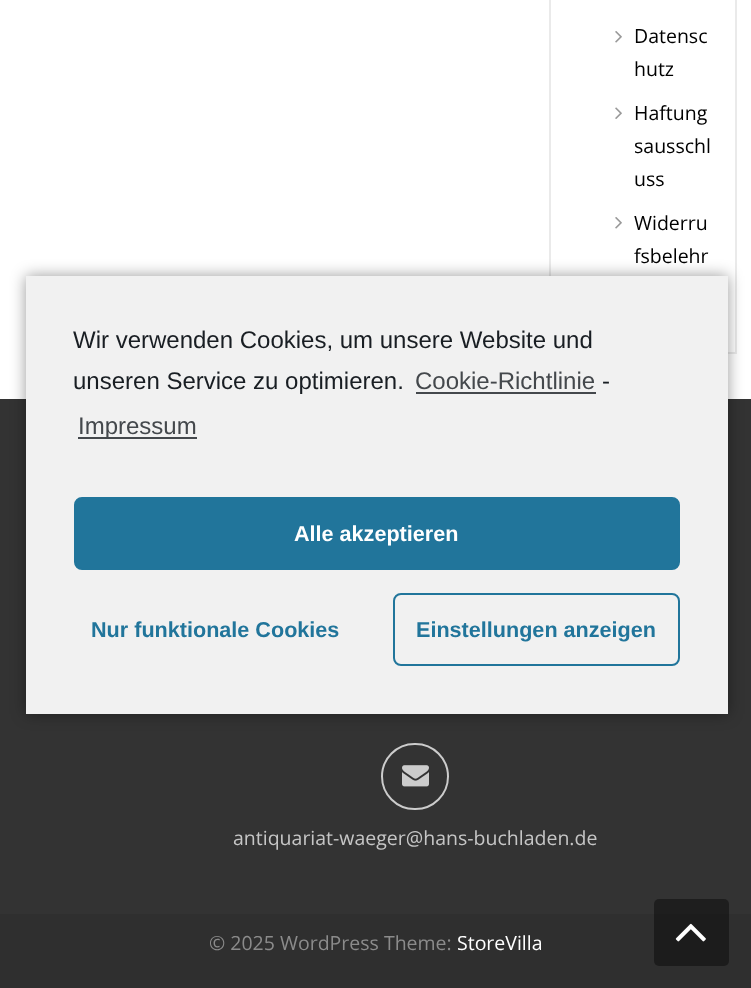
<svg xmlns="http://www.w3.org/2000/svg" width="751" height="988">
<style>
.a{font:19.5px Open Sans;fill:#000}
.b{font:19.5px Open Sans;fill:#c6c6c6}
.c{font:19.5px Open Sans;fill:#8b8b8b}
.d{font:19.5px Open Sans;fill:#fff}
.e{font:24px Liberation Sans;fill:#191e23}
.f{font:24px Liberation Sans;fill:#44484c}
.g{font:bold 21.6px Liberation Sans;fill:#fff}
.h{font:bold 21.6px Liberation Sans;fill:#21759b}
</style>
<rect width="100%" height="100%" fill="#fff"/>
<path fill="none" stroke="#eaeaea" stroke-width="2" d="M550 -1h186v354H550z"/>
<image href="1.png" x="615" y="31" width="7" height="12"/>
<image href="2.png" x="615" y="107" width="7" height="12"/>
<image href="1.png" x="615" y="217" width="7" height="12"/>
<path fill="#333" d="M0 399h751v515H0z"/>
<rect fill="none" stroke="#ccc" stroke-width="2" x="382" y="744" width="66" height="65" rx="32.5"/>
<image href="3.png" x="402" y="765" width="27" height="22"/>
<path fill="#2f2f2f" d="M0 914h751v74H0z"/>
<rect fill="#00000066" x="654" y="899" width="75" height="67" rx="5"/>
<image href="4.png" x="675" y="923" width="31" height="19"/>
<path fill="#00000066" filter="blur(7.5px)" d="M26 276h702v438H26z"/>
<path fill="#f1f1f1" d="M26 276h702v438H26z"/>
<path fill="#44484c" d="M416 392h180v2H416z"/>
<path fill="#44484c" d="M78 437h119v2H78z"/>
<rect fill="#21759b" stroke="#21759b" stroke-width="2" x="75" y="498" width="604" height="71" rx="7"/>
<rect fill="none" stroke="#21759b" stroke-width="2" x="394" y="594" width="285" height="71" rx="7"/>
<text class="a" x="634" y="43">Datensc</text>
<text class="a" x="634" y="76">hutz</text>
<text class="a" x="634" y="120">Haftung</text>
<text class="a" x="634" y="153">sausschl</text>
<text class="a" x="634" y="186">uss</text>
<text class="a" x="634" y="230">Widerru</text>
<text class="a" x="634" y="263">fsbelehr</text>
<text class="b" x="233" y="845">antiquariat-waeger@hans-buchladen.de</text>
<text class="c" x="209" y="950">© 2025 WordPress Theme:</text>
<text class="d" x="457" y="950">StoreVilla</text>
<text class="e" x="73" y="348">Wir verwenden Cookies, um unsere Website und</text>
<text class="e" x="73" y="389">unseren Service zu optimieren.</text>
<text class="f" x="415" y="389">Cookie-Richtlinie</text>
<text class="e" x="602" y="389">-</text>
<text class="f" x="78" y="434">Impressum</text>
<text class="g" x="294" y="541">Alle akzeptieren</text>
<text class="h" x="91" y="637">Nur funktionale Cookies</text>
<text class="h" x="416" y="637">Einstellungen anzeigen</text>
</svg>
